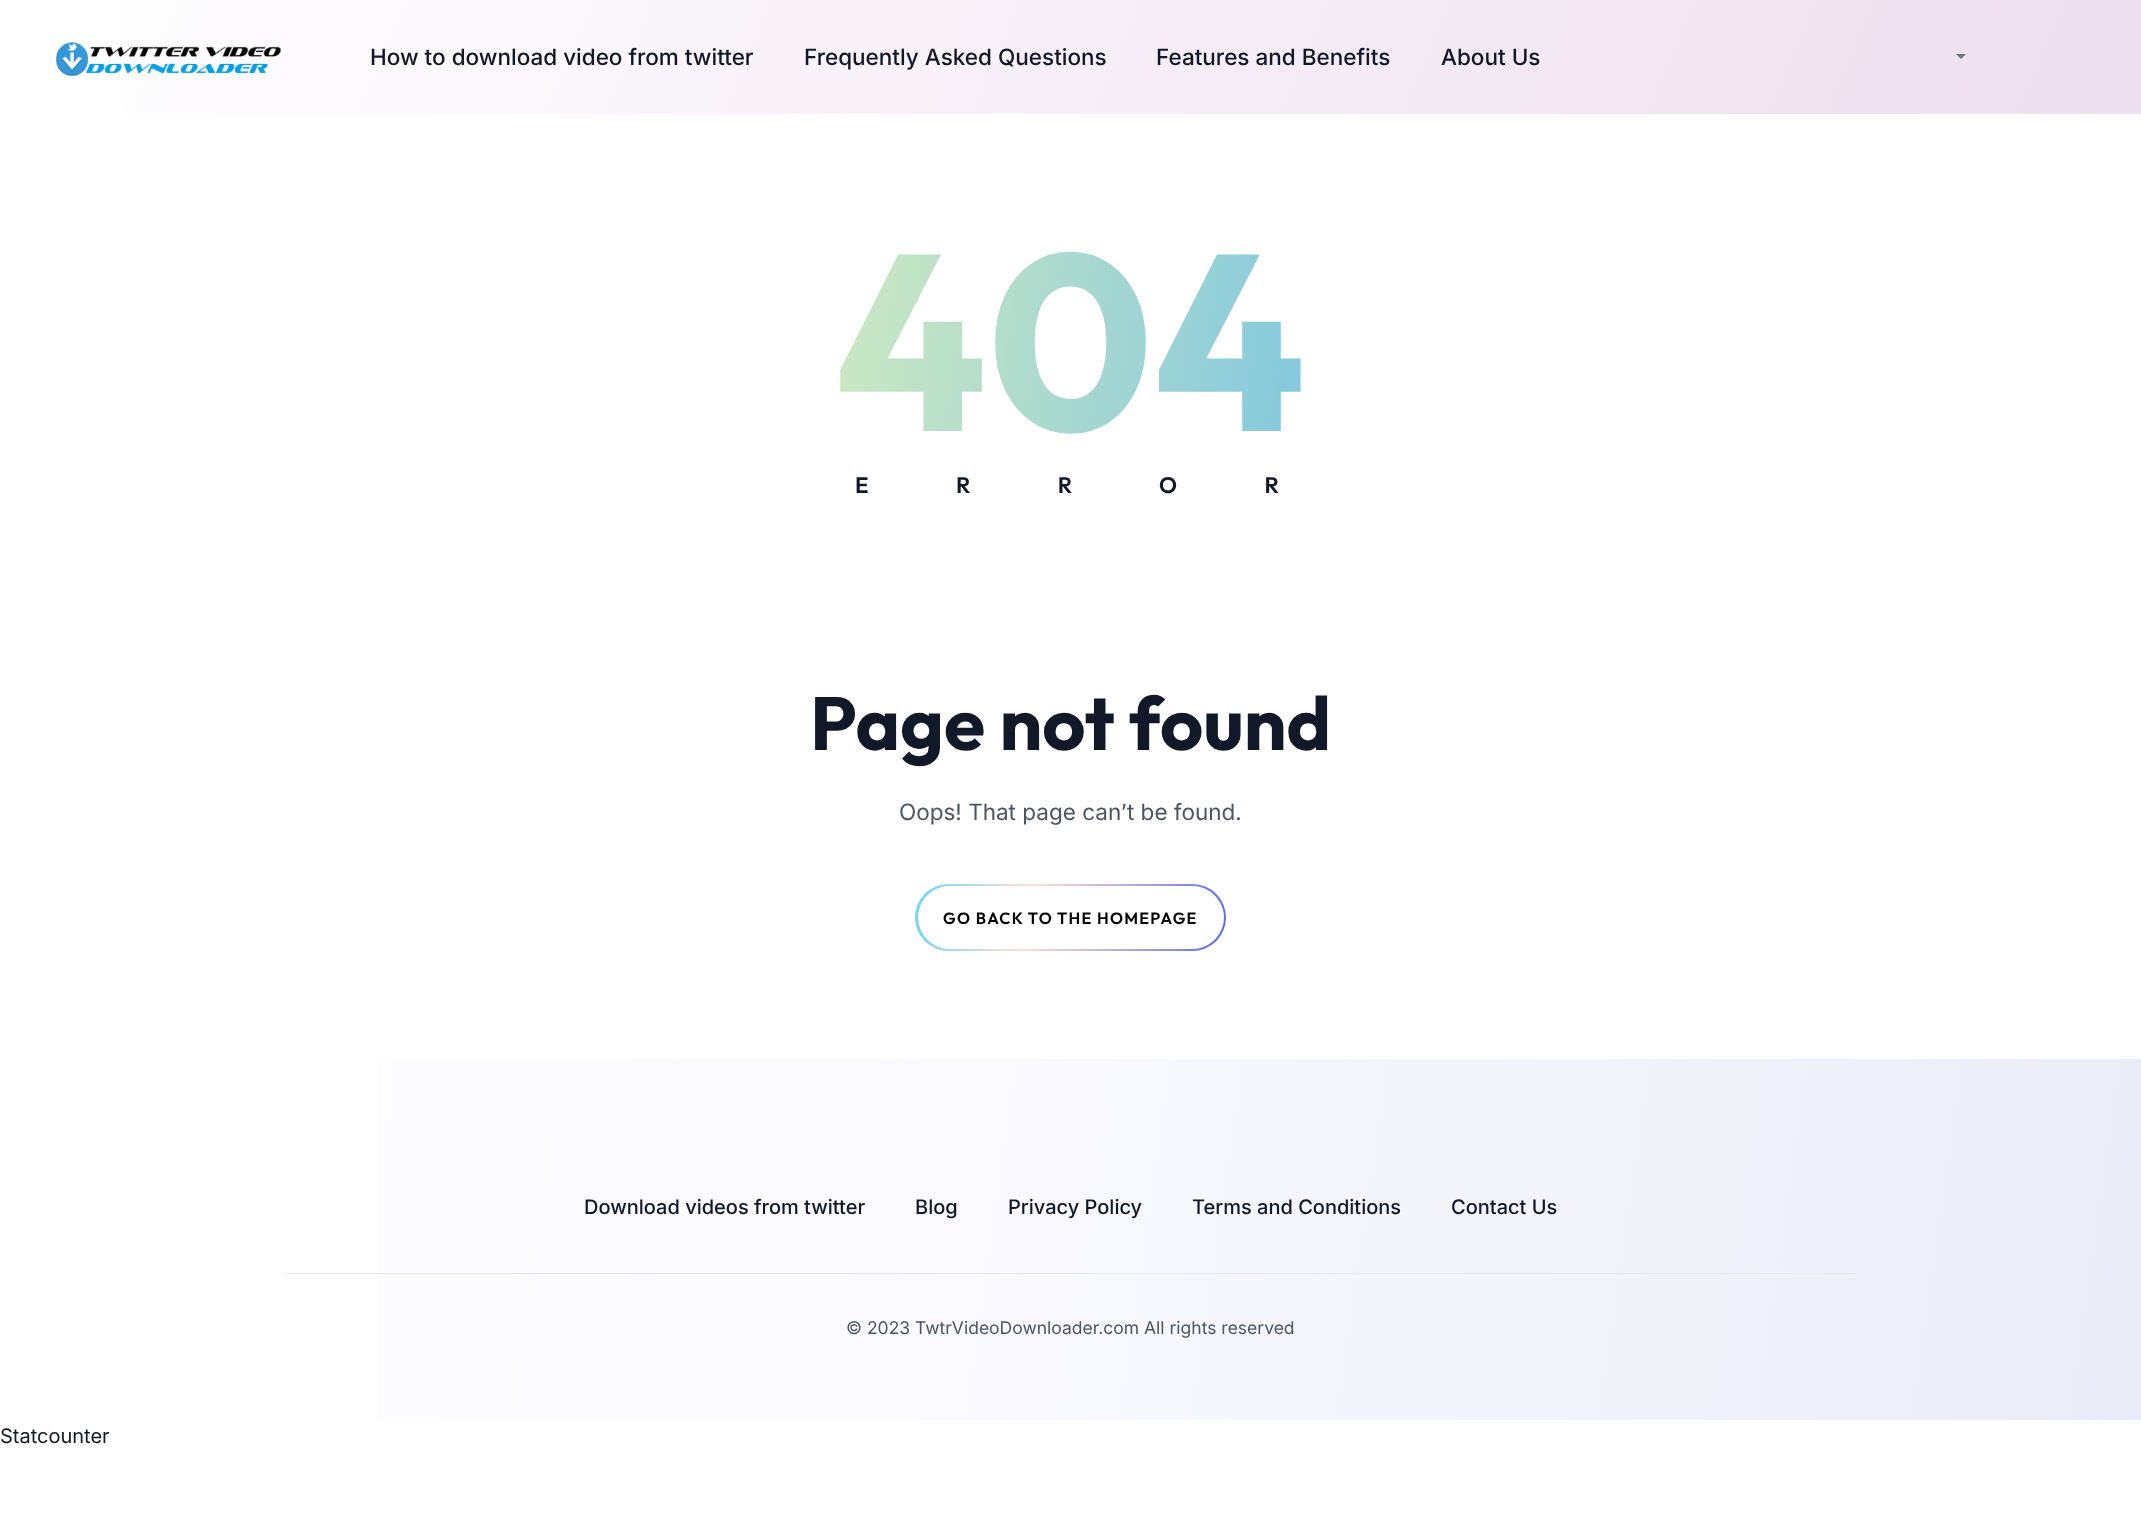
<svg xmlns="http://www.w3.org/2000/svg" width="2141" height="1537">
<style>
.a{font:500 22.5px Inter;fill:#111827}
.b{font:bold 250px Outfit;fill:url(#g1)}
.c{font:600 22.5px Outfit;letter-spacing:87.5px;fill:#111827}
.d{font:bold 75px Outfit;fill:#111827}
.e{font:22.5px Inter;fill:#4b5563}
.f{font:600 16.25px Outfit;letter-spacing:1.25px;fill:#000}
.g{font:500 20px Inter;fill:#111827}
.h{font:17.5px Inter;fill:#4b5563}
.i{font:20px Inter;fill:#111827}
</style>
<defs>
<linearGradient id="g1" gradientUnits="userSpaceOnUse" x1="822" y1="303" x2="1319" y2="375"><stop offset="0" stop-color="#cee9c1"/><stop offset="1" stop-color="#83c8de"/></linearGradient>
<linearGradient id="g2" gradientUnits="userSpaceOnUse" x1="141" y1="-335" x2="2000" y2="448"><stop offset="0" stop-color="#fff"/><stop offset="1" stop-color="#eedfef"/></linearGradient>
<linearGradient id="g3" gradientUnits="userSpaceOnUse" x1="913" y1="895" x2="1228" y2="940"><stop offset="0" stop-color="#6cd5f7"/><stop offset="0.36" stop-color="#fee2ce"/><stop offset="0.69" stop-color="#b0a9df"/><stop offset="1" stop-color="#5b6af0"/></linearGradient>
<linearGradient id="g4" gradientUnits="userSpaceOnUse" x1="-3.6" y1="1084" x2="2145" y2="1395"><stop offset="0" stop-color="#fff"/><stop offset="0.47" stop-color="#f9f9ff"/><stop offset="1" stop-color="#ebecf7"/></linearGradient>
</defs>
<rect width="100%" height="100%" fill="#fff"/>
<path fill="url(#g2)" d="M123 0h2018v114H123z"/>
<image href="1.png" x="55" y="42" width="226" height="35"/>
<path fill="#6b7280" d="M1956 54h10l-5 5z"/>
<rect fill="url(#g3)" x="915" y="884" width="311" height="67" rx="33.5"/>
<rect fill="#fff" stroke="#fff" x="918.5" y="886.5" width="305" height="62" rx="31"/>
<path fill="url(#g4)" d="M377 1059h1764v361H377z"/>
<path fill="#e5e7eb" d="M286 1273h1570v1H286z"/>
<text class="a" x="370" y="65">How to download video from twitter</text>
<text class="a" x="804" y="65">Frequently Asked Questions</text>
<text class="a" x="1156" y="65">Features and Benefits</text>
<text class="a" x="1441" y="65">About Us</text>
<text class="b" x="835" y="431">404</text>
<text class="c" x="855" y="493">ERROR</text>
<text class="d" x="810" y="750">Page not found</text>
<text class="e" x="899" y="820">Oops! That page can’t be found.</text>
<text class="f" x="943" y="924">GO BACK TO THE HOMEPAGE</text>
<text class="g" x="584" y="1214">Download videos from twitter</text>
<text class="g" x="915" y="1214">Blog</text>
<text class="g" x="1008" y="1214">Privacy Policy</text>
<text class="g" x="1192" y="1214">Terms and Conditions</text>
<text class="g" x="1451" y="1214">Contact Us</text>
<text class="h" x="846" y="1334">© 2023 TwtrVideoDownloader.com All rights reserved</text>
<text class="i" x="0" y="1443">Statcounter</text>
</svg>
